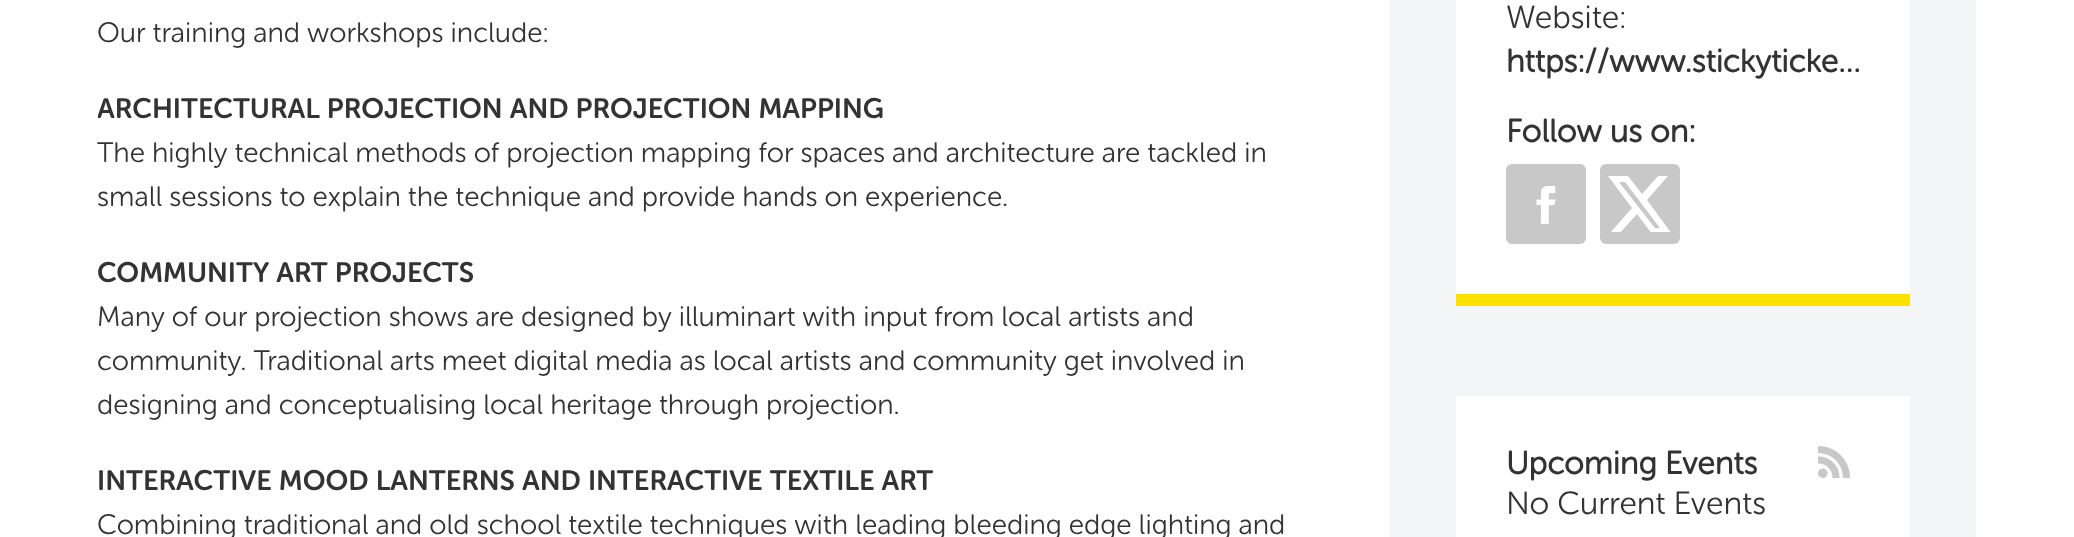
<svg xmlns="http://www.w3.org/2000/svg" width="2074" height="537">
<style>
.a{font:300 28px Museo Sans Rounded;fill:#333}
.b{font:600 28px Museo Sans Rounded;fill:#333}
.c{font:300 32px Museo Sans Rounded;fill:#333}
.d{font:bold 32px Museo Sans Rounded;fill:#333}
</style>
<defs>
<clipPath id="clip1"><path d="M1608 176h64v56H1608z"/></clipPath>
<clipPath id="clip2"><path d="M98 0h1232v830H98z"/></clipPath>
</defs>
<rect width="100%" height="100%" fill="#fff"/>
<path fill="#f4f5f6" d="M1390 0h586v537H1390z"/>
<path fill="#fff" d="M1456 0h454v294H1456z"/>
<path fill="#fce200" d="M1456 294h454v12H1456z"/>
<rect fill="#c8c8c8" x="1506" y="164" width="80" height="80" rx="6"/>
<image href="1.png" x="1536" y="186" width="20" height="38"/>
<rect fill="#c8c8c8" x="1600" y="164" width="80" height="80" rx="6"/>
<g clip-path="url(#clip1)">
<path fill="#fff" d="M1658 176h10l-21 24l25 34h-20l-15-20l-18 20h-10l23-26l-24-32h20l14 18zm-3 52h5l-35-46h-6z"/>
</g>
<path fill="#fff" d="M1456 396h454v141H1456z"/>
<image href="2.png" x="1818" y="446" width="32" height="32"/>
<text class="a" x="97" y="42">Our training and workshops include:</text>
<g clip-path="url(#clip2)">
<text class="b" x="97" y="118">ARCHITECTURAL PROJECTION AND PROJECTION MAPPING</text>
</g>
<text class="a" x="97" y="162">The highly technical methods of projection mapping for spaces and architecture are tackled in</text>
<text class="a" x="97" y="206">small sessions to explain the technique and provide hands on experience.</text>
<text class="b" x="97" y="282">COMMUNITY ART PROJECTS</text>
<text class="a" x="97" y="326">Many of our projection shows are designed by illuminart with input from local artists and</text>
<text class="a" x="97" y="370">community. Traditional arts meet digital media as local artists and community get involved in</text>
<text class="a" x="97" y="414">designing and conceptualising local heritage through projection.</text>
<text class="b" x="97" y="490">INTERACTIVE MOOD LANTERNS AND INTERACTIVE TEXTILE ART</text>
<text class="a" x="97" y="534">Combining traditional and old school textile techniques with leading bleeding edge lighting and</text>
<text class="c" x="1506" y="28">Website:</text>
<text class="d" x="1506" y="72">https://www.stickyticke…</text>
<text class="d" x="1506" y="142">Follow us on:</text>
<text class="d" x="1506" y="474">Upcoming Events</text>
<text class="c" x="1506" y="514">No Current Events</text>
</svg>
